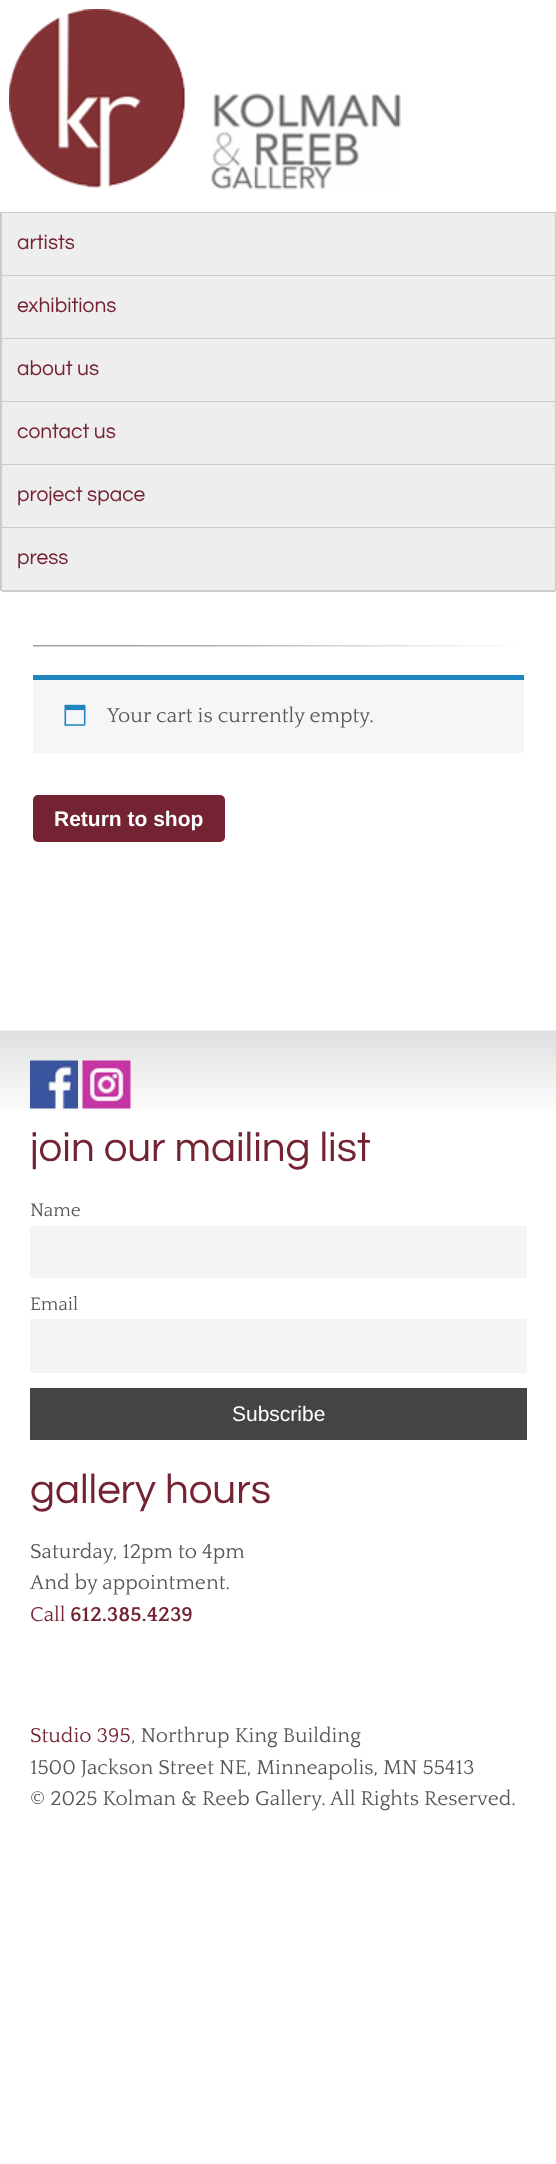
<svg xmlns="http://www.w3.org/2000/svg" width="556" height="2164">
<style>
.a{font:21px Questrial;fill:#742333}
.b{font:21px Quattrocento;fill:#565656}
.c{font:bold 21px Liberation Sans;fill:#fff}
.d{font:42px Questrial;fill:#742333}
.e{font:19px Quattrocento;fill:#565656}
.f{font:21px Liberation Sans;fill:#fff}
.g{font:21px Quattrocento;fill:#742333}
.h{font:bold 21px Quattrocento;fill:#742333}
</style>
<rect width="100%" height="100%" fill="#fff"/>
<image href="1.png" x="9" y="9" width="177" height="179"/>
<image href="2.png" x="211" y="93" width="190" height="97"/>
<path fill="#ccc" d="M0 212h556v1H0z"/>
<path fill="#ccc" d="M555 212h1v379H555z"/>
<path fill="#ccc" d="M0 212h2v379H0z"/>
<path fill="#eee" d="M2 213h553v62H2z"/>
<path fill="#ccc" d="M2 275h553v1H2z"/>
<path fill="#eee" d="M2 276h553v62H2z"/>
<path fill="#ccc" d="M2 338h553v1H2z"/>
<path fill="#eee" d="M2 339h553v62H2z"/>
<path fill="#ccc" d="M2 401h553v1H2z"/>
<path fill="#eee" d="M2 402h553v62H2z"/>
<path fill="#ccc" d="M2 464h553v1H2z"/>
<path fill="#eee" d="M2 465h553v62H2z"/>
<path fill="#ccc" d="M2 527h553v1H2z"/>
<path fill="#eee" d="M2 528h553v62H2z"/>
<path fill="#ccc" d="M2 590h553v2H2z"/>
<image href="3.png" x="33" y="645" width="482" height="2"/>
<path fill="#f6f5f8" d="M33 680h491v73H33z"/>
<path fill="#1e85be" d="M33 675h491v5H33z"/>
<image href="4.png" x="64" y="704" width="22" height="22"/>
<rect fill="#742333" x="33" y="795" width="192" height="47" rx="5"/>
<image href="5.png" x="0" y="1030" width="556" height="81"/>
<image href="6.png" x="30" y="1060" width="48" height="49"/>
<image href="7.png" x="82" y="1060" width="49" height="49"/>
<path fill="#f4f4f4" d="M30 1226h497v52H30z"/>
<path fill="#f4f4f4" d="M30 1319h497v54H30z"/>
<path fill="#444" d="M30 1388h497v52H30z"/>
<text class="a" x="17" y="249">artists</text>
<text class="a" x="17" y="312">exhibitions</text>
<text class="a" x="17" y="375">about us</text>
<text class="a" x="17" y="438">contact us</text>
<text class="a" x="17" y="501">project space</text>
<text class="a" x="17" y="564">press</text>
<text class="b" x="107" y="722">Your cart is currently empty.</text>
<text class="c" x="54" y="826">Return to shop</text>
<text class="d" x="30" y="1161">join our mailing list</text>
<text class="e" x="30" y="1216">Name</text>
<text class="e" x="30" y="1310">Email</text>
<text class="f" x="232" y="1421">Subscribe</text>
<text class="d" x="30" y="1503">gallery hours</text>
<text class="b" x="30" y="1558">Saturday, 12pm to 4pm</text>
<text class="b" x="30" y="1589">And by appointment.</text>
<text class="g" x="30" y="1621">Call</text>
<text class="h" x="70" y="1621">612.385.4239</text>
<text class="g" x="30" y="1742">Studio 395</text>
<text class="b" x="131" y="1742">, Northrup King Building</text>
<text class="b" x="30" y="1774">1500 Jackson Street NE, Minneapolis, MN 55413</text>
<text class="b" x="30" y="1805">© 2025 Kolman &amp; Reeb Gallery. All Rights Reserved.</text>
</svg>
